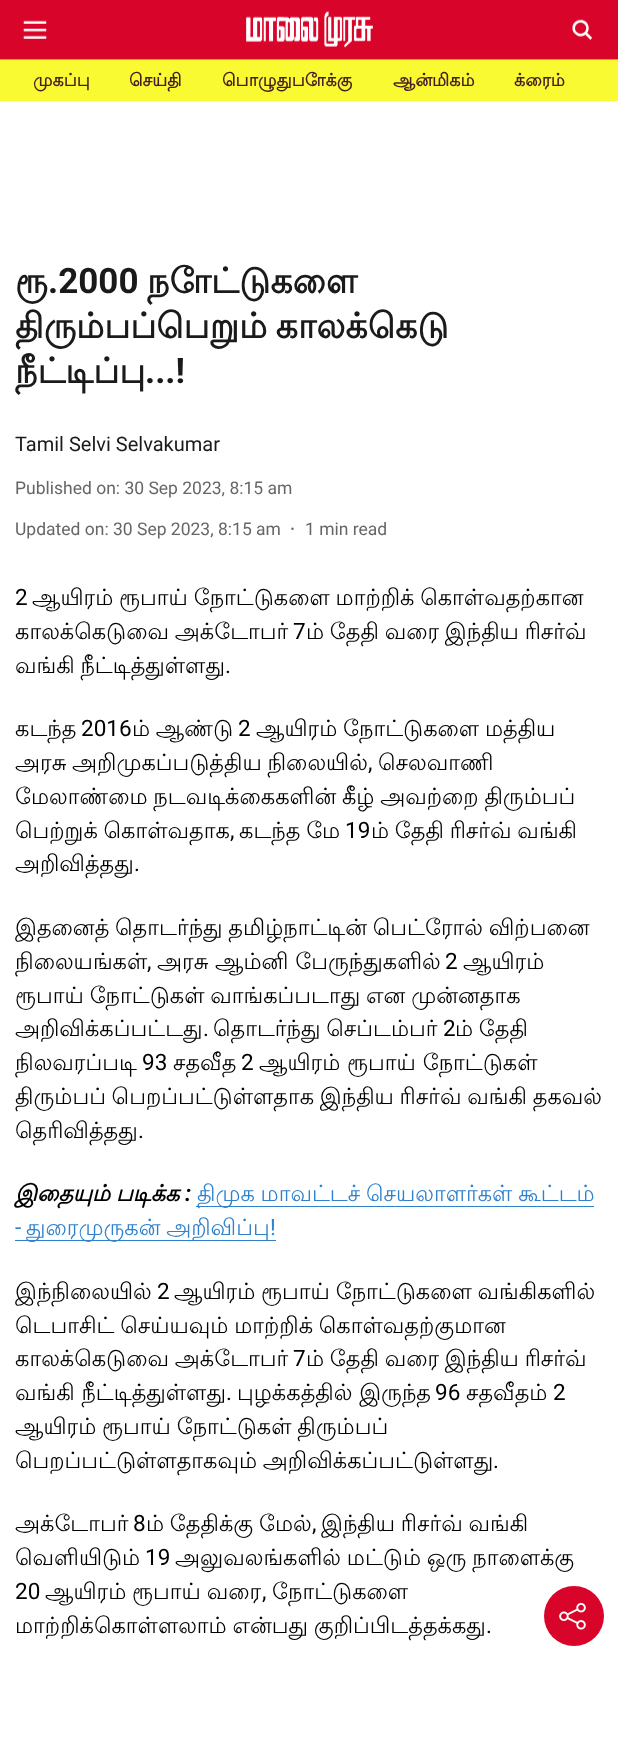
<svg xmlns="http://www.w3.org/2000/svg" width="618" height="1762">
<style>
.a{font:bold 17.5px Lohit Tamil;fill:#481d24}
.b{font:bold 35px Lohit Tamil;fill:#1a1a1a}
.c{font:bold 35px Roboto;fill:#1a1a1a}
.d{font:20px Roboto;fill:#1a1a1a}
.e{font:17.5px Roboto;fill:#666}
.f{font:22.5px Roboto;fill:#000}
.g{font:22.5px Lohit Tamil;fill:#000}
.h{font:italic bold 22.5px Lohit Tamil;fill:#000}
.i{font:italic bold 22.5px Roboto;fill:#000}
.j{font:22.5px Lohit Tamil;fill:#2f81cd}
.k{font:22.5px Roboto;fill:#2f81cd}
</style>
<rect width="100%" height="100%" fill="#fff"/>
<path fill="#d90429" d="M0 0h618v59H0z"/>
<path fill="#a4a4a4" d="M0 59h618v1H0z"/>
<image href="1.png" x="23" y="20" width="24" height="19"/>
<image href="2.png" x="246" y="10" width="127" height="38"/>
<image href="3.png" x="572" y="19" width="20" height="21"/>
<path fill="#fafa33" d="M0 60h618v41H0z"/>
<circle fill="#666" cx="292.5" cy="528.8" r="1.2"/>
<path fill="#2f81cd" d="M196 1206h398v1H196z"/>
<path fill="#2f81cd" d="M15 1240h261v1H15z"/>
<circle fill="#d90429" cx="574" cy="1616" r="30"/>
<image href="4.png" x="559" y="1602" width="27" height="28"/>
<text class="a" x="33" y="86">முகப்பு</text>
<text class="a" x="129" y="86">செய்தி</text>
<text class="a" x="222" y="86">பொழுதுபோக்கு</text>
<text class="a" x="393" y="86">ஆன்மிகம்</text>
<text class="a" x="514" y="86">க்ரைம்</text>
<text class="b" x="15" y="293">ரூ</text>
<text class="c" x="48" y="293">.2000</text>
<text class="b" x="147" y="293">நோட்டுகளை</text>
<text class="b" x="15" y="338" word-spacing="-2">திரும்பப்பெறும் காலக்கெடு</text>
<text class="b" x="15" y="383">நீட்டிப்பு</text>
<text class="c" x="145" y="383">...!</text>
<text class="d" x="15" y="451">Tamil Selvi Selvakumar</text>
<text class="e" x="15" y="494">Published on: 30 Sep 2023, 8:15 am</text>
<text class="e" x="15" y="535">Updated on: 30 Sep 2023, 8:15 am</text>
<text class="e" x="305" y="535">1 min read</text>
<text class="f" x="15" y="605">2</text>
<text class="g" x="32" y="605" word-spacing="-1">ஆயிரம் ரூபாய் நோட்டுகளை மாற்றிக் கொள்வதற்கான</text>
<text class="g" x="15" y="639" word-spacing="-1">காலக்கெடுவை அக்டோபர்</text>
<text class="f" x="293" y="639">7</text>
<text class="g" x="306" y="639" word-spacing="-1">ம் தேதி வரை இந்திய ரிசர்வ்</text>
<text class="g" x="15" y="673" word-spacing="-1">வங்கி நீட்டித்துள்ளது</text>
<text class="f" x="225" y="673">.</text>
<text class="g" x="15" y="736">கடந்த</text>
<text class="f" x="81" y="736">2016</text>
<text class="g" x="132" y="736" word-spacing="-1">ம் ஆண்டு</text>
<text class="f" x="238" y="736">2</text>
<text class="g" x="256" y="736" word-spacing="-1">ஆயிரம் நோட்டுகளை மத்திய</text>
<text class="g" x="15" y="770" word-spacing="-1">அரசு அறிமுகப்படுத்திய நிலையில்</text>
<text class="f" x="368" y="770">,</text>
<text class="g" x="378" y="770">செலவாணி</text>
<text class="g" x="15" y="804" word-spacing="-1">மேலாண்மை நடவடிக்கைகளின் கீழ் அவற்றை திரும்பப்</text>
<text class="g" x="15" y="838" word-spacing="-1">பெற்றுக் கொள்வதாக</text>
<text class="f" x="230" y="838">,</text>
<text class="g" x="239" y="838" word-spacing="-1">கடந்த மே</text>
<text class="f" x="345" y="838">19</text>
<text class="g" x="371" y="838" word-spacing="-1">ம் தேதி ரிசர்வ் வங்கி</text>
<text class="g" x="15" y="871">அறிவித்தது</text>
<text class="f" x="134" y="871">.</text>
<text class="g" x="15" y="935" word-spacing="-1">இதனைத் தொடர்ந்து தமிழ்நாட்டின் பெட்ரோல் விற்பனை</text>
<text class="g" x="15" y="969">நிலையங்கள்</text>
<text class="f" x="147" y="969">,</text>
<text class="g" x="157" y="969">அரசு ஆம்னி பேருந்துகளில்</text>
<text class="f" x="445" y="969">2</text>
<text class="g" x="463" y="969">ஆயிரம்</text>
<text class="g" x="15" y="1003" word-spacing="-1">ரூபாய் நோட்டுகள் வாங்கப்படாது என முன்னதாக</text>
<text class="g" x="15" y="1036">அறிவிக்கப்பட்டது</text>
<text class="f" x="203" y="1036">.</text>
<text class="g" x="213" y="1036" word-spacing="-1">தொடர்ந்து செப்டம்பர்</text>
<text class="f" x="443" y="1036">2</text>
<text class="g" x="455" y="1036" word-spacing="-1">ம் தேதி</text>
<text class="g" x="15" y="1070">நிலவரப்படி</text>
<text class="f" x="142" y="1070">93</text>
<text class="g" x="173" y="1070">சதவீத</text>
<text class="f" x="241" y="1070">2</text>
<text class="g" x="259" y="1070">ஆயிரம் ரூபாய் நோட்டுகள்</text>
<text class="g" x="15" y="1104" word-spacing="-1">திரும்பப் பெறப்பட்டுள்ளதாக இந்திய ரிசர்வ் வங்கி தகவல்</text>
<text class="g" x="15" y="1138">தெரிவித்தது</text>
<text class="f" x="138" y="1138">.</text>
<text class="h" x="15" y="1201" word-spacing="-1">இதையும் படிக்க</text>
<text class="i" x="185" y="1201">:</text>
<text class="j" x="197" y="1201" word-spacing="-1">திமுக மாவட்டச் செயலாளர்கள் கூட்டம்</text>
<text class="k" x="15" y="1235">-</text>
<text class="j" x="26" y="1235" word-spacing="-1">துரைமுருகன் அறிவிப்பு</text>
<text class="k" x="270" y="1235">!</text>
<text class="g" x="15" y="1299">இந்நிலையில்</text>
<text class="f" x="157" y="1299">2</text>
<text class="g" x="174" y="1299" word-spacing="-1">ஆயிரம் ரூபாய் நோட்டுகளை வங்கிகளில்</text>
<text class="g" x="15" y="1333" word-spacing="-1">டெபாசிட் செய்யவும் மாற்றிக் கொள்வதற்குமான</text>
<text class="g" x="15" y="1366" word-spacing="-1">காலக்கெடுவை அக்டோபர்</text>
<text class="f" x="293" y="1366">7</text>
<text class="g" x="306" y="1366" word-spacing="-1">ம் தேதி வரை இந்திய ரிசர்வ்</text>
<text class="g" x="15" y="1400">வங்கி நீட்டித்துள்ளது</text>
<text class="f" x="226" y="1400">.</text>
<text class="g" x="237" y="1400">புழக்கத்தில் இருந்த</text>
<text class="f" x="435" y="1400">96</text>
<text class="g" x="466" y="1400">சதவீதம்</text>
<text class="f" x="553" y="1400">2</text>
<text class="g" x="15" y="1434" word-spacing="-1">ஆயிரம் ரூபாய் நோட்டுகள் திரும்பப்</text>
<text class="g" x="15" y="1468" word-spacing="-1">பெறப்பட்டுள்ளதாகவும் அறிவிக்கப்பட்டுள்ளது</text>
<text class="f" x="493" y="1468">.</text>
<text class="g" x="15" y="1531">அக்டோபர்</text>
<text class="f" x="133" y="1531">8</text>
<text class="g" x="146" y="1531" word-spacing="-1">ம் தேதிக்கு மேல்</text>
<text class="f" x="312" y="1531">,</text>
<text class="g" x="321" y="1531" word-spacing="-1">இந்திய ரிசர்வ் வங்கி</text>
<text class="g" x="15" y="1565">வெளியிடும்</text>
<text class="f" x="145" y="1565">19</text>
<text class="g" x="175" y="1565" word-spacing="-1">அலுவலங்களில் மட்டும் ஒரு நாளைக்கு</text>
<text class="f" x="15" y="1599">20</text>
<text class="g" x="45" y="1599" word-spacing="-1">ஆயிரம் ரூபாய் வரை</text>
<text class="f" x="262" y="1599">,</text>
<text class="g" x="272" y="1599">நோட்டுகளை</text>
<text class="g" x="15" y="1633" word-spacing="-1">மாற்றிக்கொள்ளலாம் என்பது குறிப்பிடத்தக்கது</text>
<text class="f" x="486" y="1633">.</text>
</svg>
